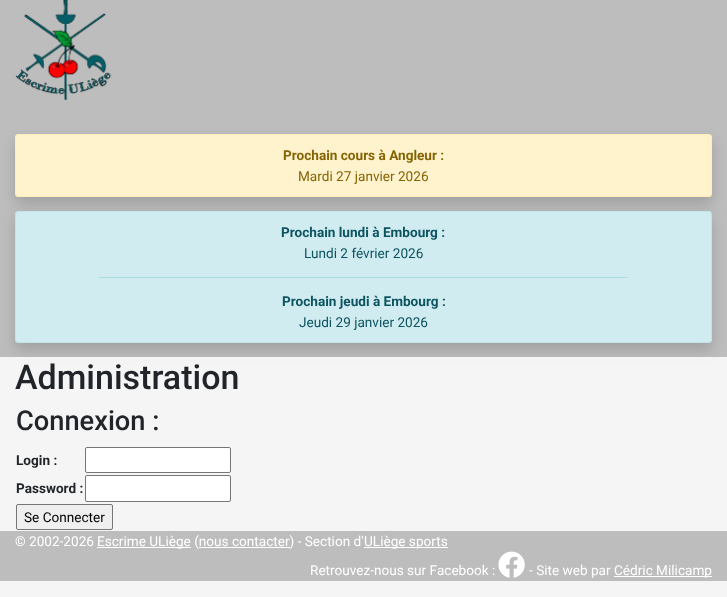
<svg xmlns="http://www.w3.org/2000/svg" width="727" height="597">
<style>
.a{font:bold 13.6px Roboto;fill:#856404}
.b{font:13.6px Roboto;fill:#856404}
.c{font:bold 13.6px Roboto;fill:#0c5460}
.d{font:13.6px Roboto;fill:#0c5460}
.e{font:500 34px Roboto;fill:#212529}
.f{font:500 27.25px Roboto;fill:#212529}
.g{font:bold 13.6px Roboto;fill:#212529}
.h{font:13.6px Roboto;fill:#000}
.i{font:13.6px Roboto;fill:#fff}
</style>
<rect width="100%" height="100%" fill="#f5f5f5"/>
<path fill="#bdbdbd" d="M0 0h727v357H0z"/>
<image href="1.png" x="15" y="0" width="97" height="100"/>
<rect fill="#00000026" filter="blur(7px)" x="15" y="141" width="697" height="63" rx="3"/>
<rect fill="#fff3cd" stroke="#ffeeba" x="15.5" y="134.5" width="696" height="62" rx="2.5"/>
<rect fill="#00000026" filter="blur(7px)" x="15" y="218" width="697" height="132" rx="3"/>
<rect fill="#d1ecf1" stroke="#bee5eb" x="15.5" y="211.5" width="696" height="131" rx="2.5"/>
<path fill="#abdde5" d="M99 277h529v1H99z"/>
<path fill="#f5f5f5" d="M15 357h697v3H15z"/>
<rect fill="#fff" stroke="#767676" x="85.5" y="447.5" width="145" height="25" rx="1.5"/>
<rect fill="#fff" stroke="#767676" x="85.5" y="475.5" width="145" height="26" rx="1.5"/>
<rect fill="#efefef" stroke="#767676" x="16.5" y="504.5" width="96" height="25" rx="1.5"/>
<path fill="#bdbdbd" d="M0 531h727v50H0z"/>
<path fill="#fff" d="M97 547h94v1H97z"/>
<path fill="#fff" d="M364 547h84v1H364z"/>
<path fill="#fff" d="M199 547h91v1H199z"/>
<image href="2.png" x="498" y="551" width="27" height="27"/>
<path fill="#fff" d="M614 576h98v1H614z"/>
<text class="a" x="283" y="160">Prochain cours à Angleur :</text>
<text class="b" x="298" y="181">Mardi 27 janvier 2026</text>
<text class="c" x="281" y="237">Prochain lundi à Embourg :</text>
<text class="d" x="304" y="258">Lundi 2 février 2026</text>
<text class="c" x="282" y="306">Prochain jeudi à Embourg :</text>
<text class="d" x="299" y="327">Jeudi 29 janvier 2026</text>
<text class="e" x="15" y="389">Administration</text>
<text class="f" x="16" y="430">Connexion :</text>
<text class="g" x="16" y="465">Login :</text>
<text class="g" x="16" y="493">Password :</text>
<text class="h" x="24" y="522">Se Connecter</text>
<text class="i" x="15" y="546">© 2002-2026</text>
<text class="i" x="97" y="546">Escrime ULiège (nous contacter) - Section d'</text>
<text class="i" x="364" y="546">ULiège sports</text>
<text class="i" x="310" y="575">Retrouvez-nous sur Facebook :</text>
<text class="i" x="529" y="575">- Site web par</text>
<text class="i" x="614" y="575">Cédric Milicamp</text>
</svg>
